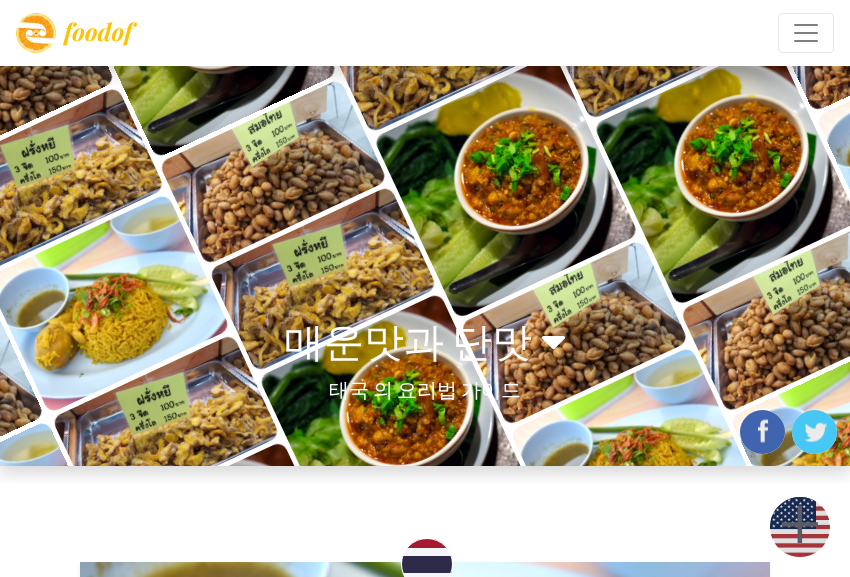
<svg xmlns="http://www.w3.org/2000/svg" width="850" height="577">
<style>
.a{font:italic bold 24px Playfair Display;fill:#ffc107}
.b{font:500 40px WenQuanYi Zen Hei;fill:#fff}
.c{font:500 20px WenQuanYi Zen Hei;fill:#fff}
.d{font:70px Myriad;fill:#5a5b65}
</style>
<defs>
<clipPath id="clip1"><path d="M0 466h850v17H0z"/></clipPath>
<clipPath id="clip2"><rect x="401" y="538" width="52" height="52" rx="26"/></clipPath>
</defs>
<rect width="100%" height="100%" fill="#fff"/>
<g clip-path="url(#clip1)">
<path fill="#00000026" filter="blur(8px)" d="M0 74h850v400H0z"/>
</g>
<image href="3.png" x="0" y="66" width="113" height="69"/>
<image href="4.png" x="114" y="66" width="221" height="90"/>
<image href="5.png" x="339" y="66" width="177" height="65"/>
<image href="7.png" x="565" y="66" width="143" height="52"/>
<image href="9.png" x="0" y="89" width="163" height="177"/>
<image href="10.png" x="161" y="81" width="224" height="182"/>
<image href="6.png" x="376" y="66" width="261" height="251"/>
<image href="11.png" x="792" y="66" width="58" height="44"/>
<image href="8.png" x="596" y="66" width="254" height="238"/>
<path fill="#00000026" filter="blur(8px)" d="M0 8h850v66H0z"/>
<path fill="#fff" d="M0 0h850v66H0z"/>
<image href="1.png" x="16" y="13" width="40" height="40"/>
<rect fill="none" stroke="#e6e6e6" x="778.5" y="13.5" width="55" height="39" rx="3.5"/>
<image href="2.png" x="794" y="24" width="24" height="18"/>
<image href="12.png" x="819" y="101" width="31" height="88"/>
<image href="13.png" x="0" y="196" width="228" height="215"/>
<image href="14.png" x="211" y="188" width="224" height="182"/>
<image href="17.png" x="0" y="321" width="42" height="115"/>
<image href="22.png" x="0" y="423" width="68" height="43"/>
<image href="18.png" x="54" y="336" width="224" height="130"/>
<image href="19.png" x="261" y="295" width="260" height="171"/>
<image href="15.png" x="462" y="242" width="225" height="182"/>
<image href="16.png" x="682" y="231" width="168" height="180"/>
<image href="20.png" x="513" y="349" width="234" height="117"/>
<image href="21.png" x="732" y="362" width="118" height="104"/>
<image href="23.png" x="228" y="443" width="67" height="23"/>
<image href="24.png" x="541" y="336" width="25" height="14"/>
<rect fill="#ebebeb" x="740" y="410" width="45" height="44" rx="22"/>
<image href="25.png" x="740" y="410" width="45" height="44"/>
<rect fill="#ebebeb" x="792" y="410" width="45" height="44" rx="22"/>
<image href="26.png" x="792" y="410" width="45" height="44"/>
<rect fill="#00000012" filter="blur(2px)" x="80" y="564" width="690" height="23" rx="4"/>
<image href="27.png" x="80" y="562" width="690" height="15"/>
<g clip-path="url(#clip2)">
<path fill="#f4f5f8" d="M402 539h50v38H402z"/>
<path fill="#2d2a4a" d="M402 556h50v17H402z"/>
</g>
<path fill="#a51931" fill-rule="evenodd" d="M407 548c3-4 7-7 13-9h14c6 2 10 5 13 9zm13 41c-5-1-9-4-13-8h40c-9 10-16 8-27 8z"/>
<circle fill="none" stroke="#fff" cx="427" cy="564" r="25.5"/>
<image href="28.png" x="770" y="497" width="60" height="60"/>
<circle fill="#0000001f" cx="800" cy="527" r="30"/>
<text class="a" x="64" y="41">foodof</text>
<text class="b" x="284" y="356" word-spacing="-4">매운맛과 단맛</text>
<text class="c" x="329" y="397" word-spacing="-2">태국 의 요리법 가이드</text>
<text class="d" x="779" y="543">+</text>
</svg>
